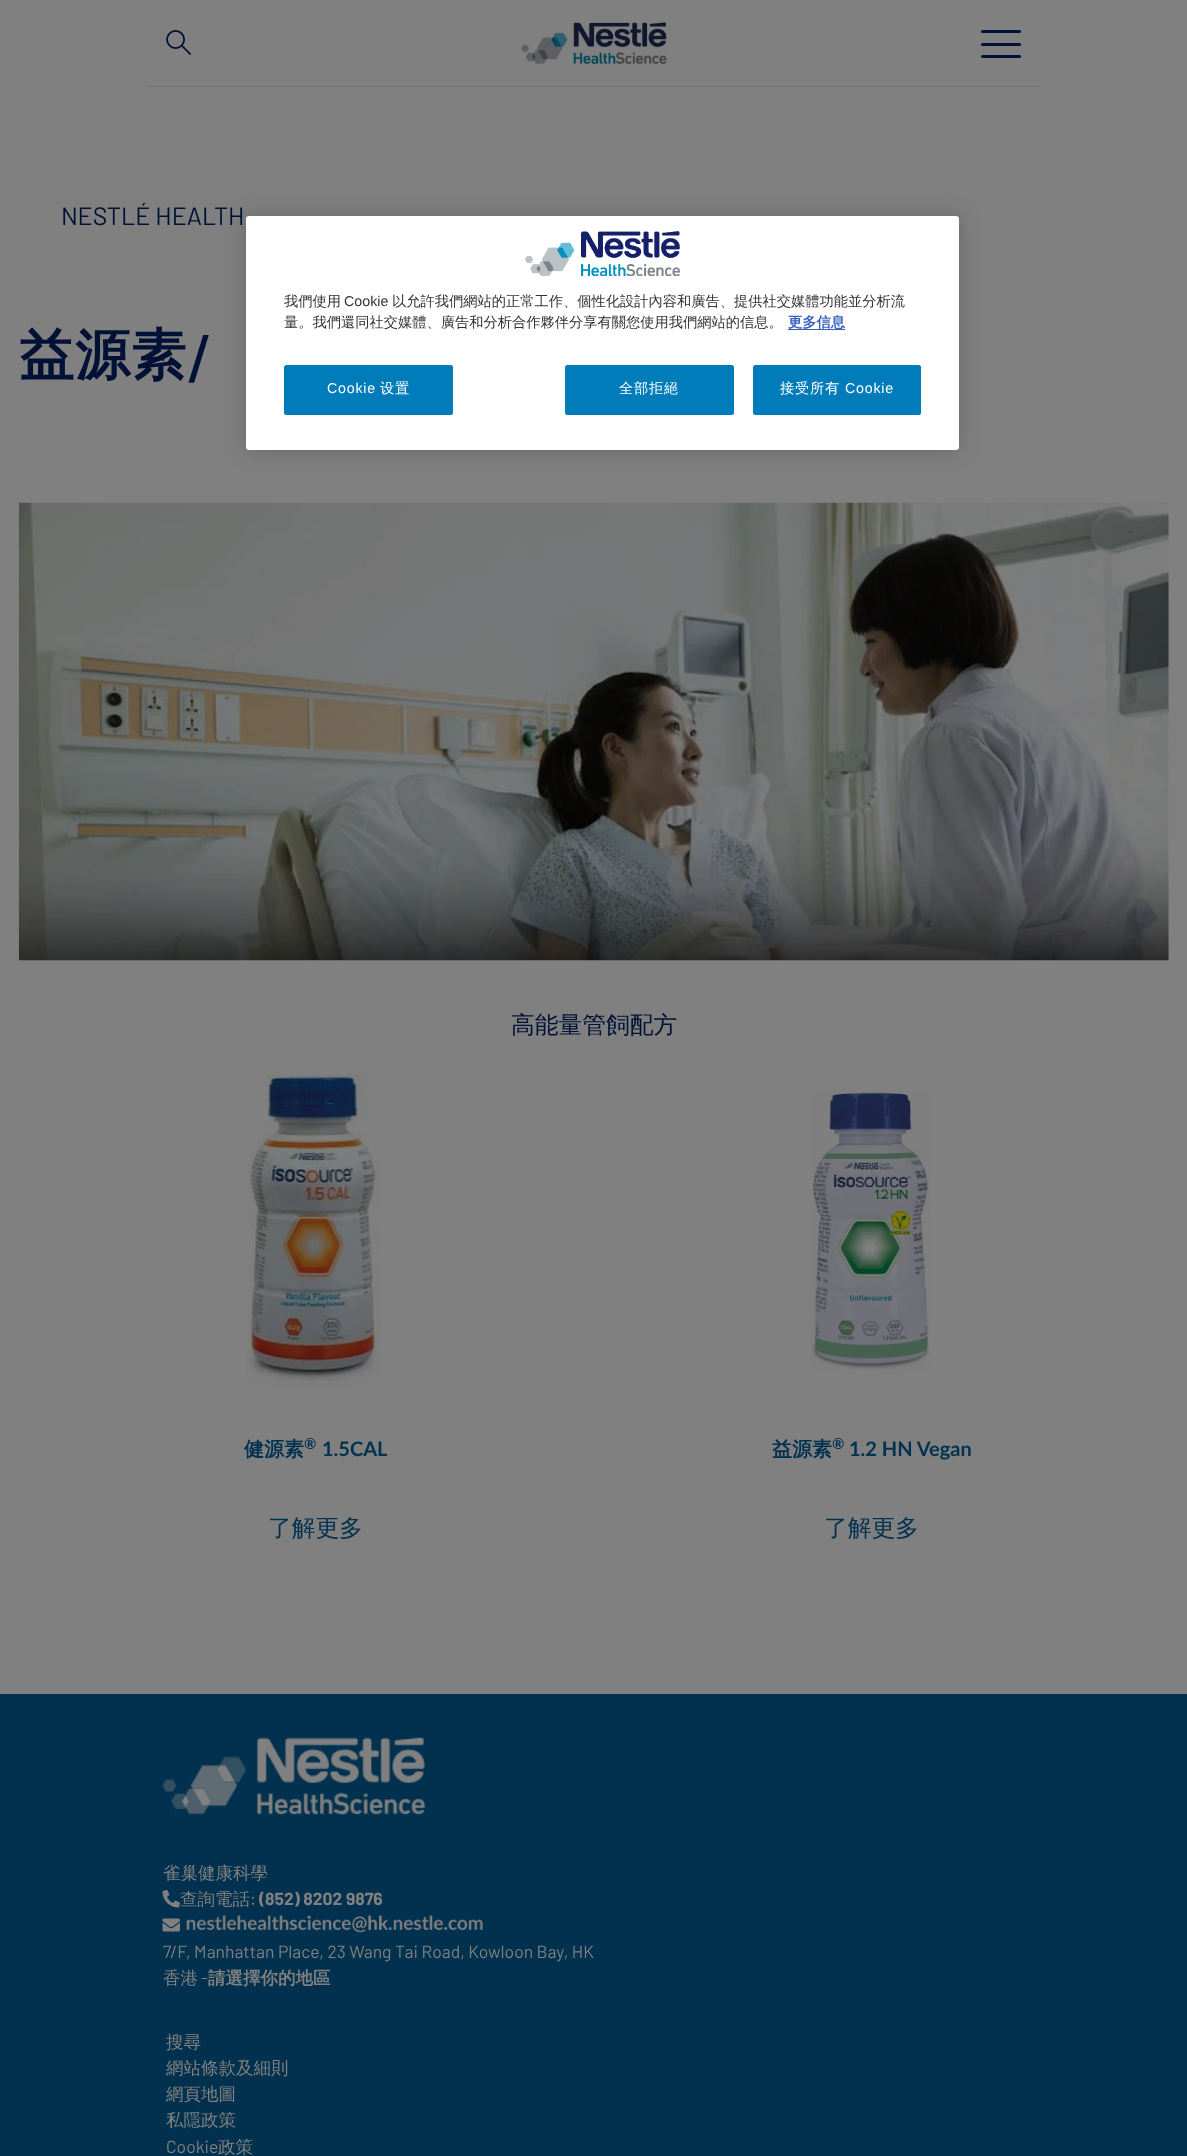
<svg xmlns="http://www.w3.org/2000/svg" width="1187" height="2156">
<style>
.a{font:25px Barlow;fill:#001135}
.b{font:bold 55px WenQuanYi Zen Hei;letter-spacing:1px;fill:#001135}
.c{font:bold 55px Source Serif Pro;letter-spacing:1px;fill:#001135}
.d{font:500 23.75px WenQuanYi Zen Hei;fill:#001135}
.e{font:bold 20px WenQuanYi Zen Hei;fill:#01314e}
.f{font:bold 15px Lato;fill:#01314e}
.g{font:bold 20px Lato;fill:#01314e}
.h{font:500 23.75px WenQuanYi Zen Hei;fill:#01314e}
.i{font:500 14.25px WenQuanYi Zen Hei;fill:#333}
.j{font:14.25px Liberation Sans;fill:#333}
.k{font:bold 14.25px WenQuanYi Zen Hei;fill:#3860be}
.l{font:14.25px Liberation Sans;letter-spacing:0.75px;fill:#fff}
.m{font:500 14.25px WenQuanYi Zen Hei;letter-spacing:0.75px;fill:#fff}
.n{font:500 17.5px WenQuanYi Zen Hei;fill:#808080}
.o{font:17.5px Barlow;fill:#808080}
.p{font:bold 17.5px Barlow;fill:#808080}
.q{font:bold 17.5px WenQuanYi Zen Hei;fill:#808080}
</style>
<rect width="100%" height="100%" fill="#808080"/>
<path fill="#6d737a" d="M148 86h892v1H148z"/>
<image href="1.png" x="166" y="30" width="25" height="25"/>
<image href="2.png" x="521" y="22" width="149" height="42"/>
<rect fill="#011135" x="981" y="30" width="40" height="3" rx="1.5"/>
<rect fill="#011135" x="981" y="43" width="40" height="3" rx="1.5"/>
<rect fill="#011135" x="981" y="55" width="40" height="3" rx="1.5"/>
<image href="3.png" x="18" y="502" width="1151" height="459"/>
<image href="4.png" x="247" y="1072" width="134" height="315"/>
<image href="5.png" x="811" y="1091" width="119" height="279"/>
<rect fill="#00000033" filter="blur(11px)" x="246" y="216" width="713" height="234" rx="3"/>
<rect fill="#fff" x="246" y="216" width="713" height="234" rx="3"/>
<image href="6.png" x="525" y="231" width="155" height="45"/>
<path fill="#3860be" d="M788 329h57v1H788z"/>
<rect fill="#007cba" x="284" y="365" width="169" height="50" rx="2.5"/>
<rect fill="#007cba" x="565" y="365" width="169" height="50" rx="2.5"/>
<rect fill="#007cba" x="753" y="365" width="168" height="50" rx="2.5"/>
<path fill="#01314e" d="M0 1694h1187v462H0z"/>
<image href="7.png" x="162" y="1737" width="263" height="79"/>
<image href="8.png" x="162" y="1890" width="18" height="18"/>
<image href="9.png" x="162" y="1918" width="18" height="14"/>
<image href="10.png" x="186" y="1915" width="297" height="18"/>
<text class="a" x="61" y="225">NESTLÉ HEALTH</text>
<text class="b" x="19" y="374">益源素</text>
<text class="c" x="188" y="374">/</text>
<text class="d" x="511" y="1033">高能量管飼配方</text>
<text class="e" x="244" y="1456">健源素</text>
<text class="f" x="304" y="1449">®</text>
<text class="g" x="322" y="1456">1.5CAL</text>
<text class="h" x="268" y="1536">了解更多</text>
<text class="e" x="772" y="1456">益源素</text>
<text class="f" x="832" y="1449">®</text>
<text class="g" x="849" y="1456">1.2 HN Vegan</text>
<text class="h" x="824" y="1536">了解更多</text>
<text class="i" x="284" y="306">我們使用</text>
<text class="j" x="344" y="306">Cookie</text>
<text class="i" x="392" y="306">以允許我們網站的正常工作、個性化設計內容和廣告、提供社交媒體功能並分析流</text>
<text class="i" x="284" y="327">量。我們還同社交媒體、廣告和分析合作夥伴分享有關您使用我們網站的信息。</text>
<text class="k" x="788" y="327">更多信息</text>
<text class="l" x="327" y="393">Cookie</text>
<text class="m" x="380" y="393">设置</text>
<text class="m" x="619" y="393">全部拒絕</text>
<text class="m" x="780" y="393">接受所有</text>
<text class="l" x="845" y="393">Cookie</text>
<text class="n" x="163" y="1879">雀巢健康科學</text>
<text class="n" x="180" y="1905">查詢電話</text>
<text class="o" x="250" y="1905">:</text>
<text class="p" x="259" y="1905">(852) 8202 9876</text>
<text class="o" x="163" y="1958">7/F, Manhattan Place, 23 Wang Tai Road, Kowloon Bay, HK</text>
<text class="n" x="163" y="1984">香港</text>
<text class="o" x="201" y="1984">-</text>
<text class="q" x="208" y="1984">請選擇你的地區</text>
<text class="n" x="166" y="2048">搜尋</text>
<text class="n" x="166" y="2074">網站條款及細則</text>
<text class="n" x="166" y="2100">網頁地圖</text>
<text class="n" x="166" y="2126">私隱政策</text>
<text class="o" x="166" y="2153">Cookie</text>
<text class="n" x="218" y="2153">政策</text>
</svg>
